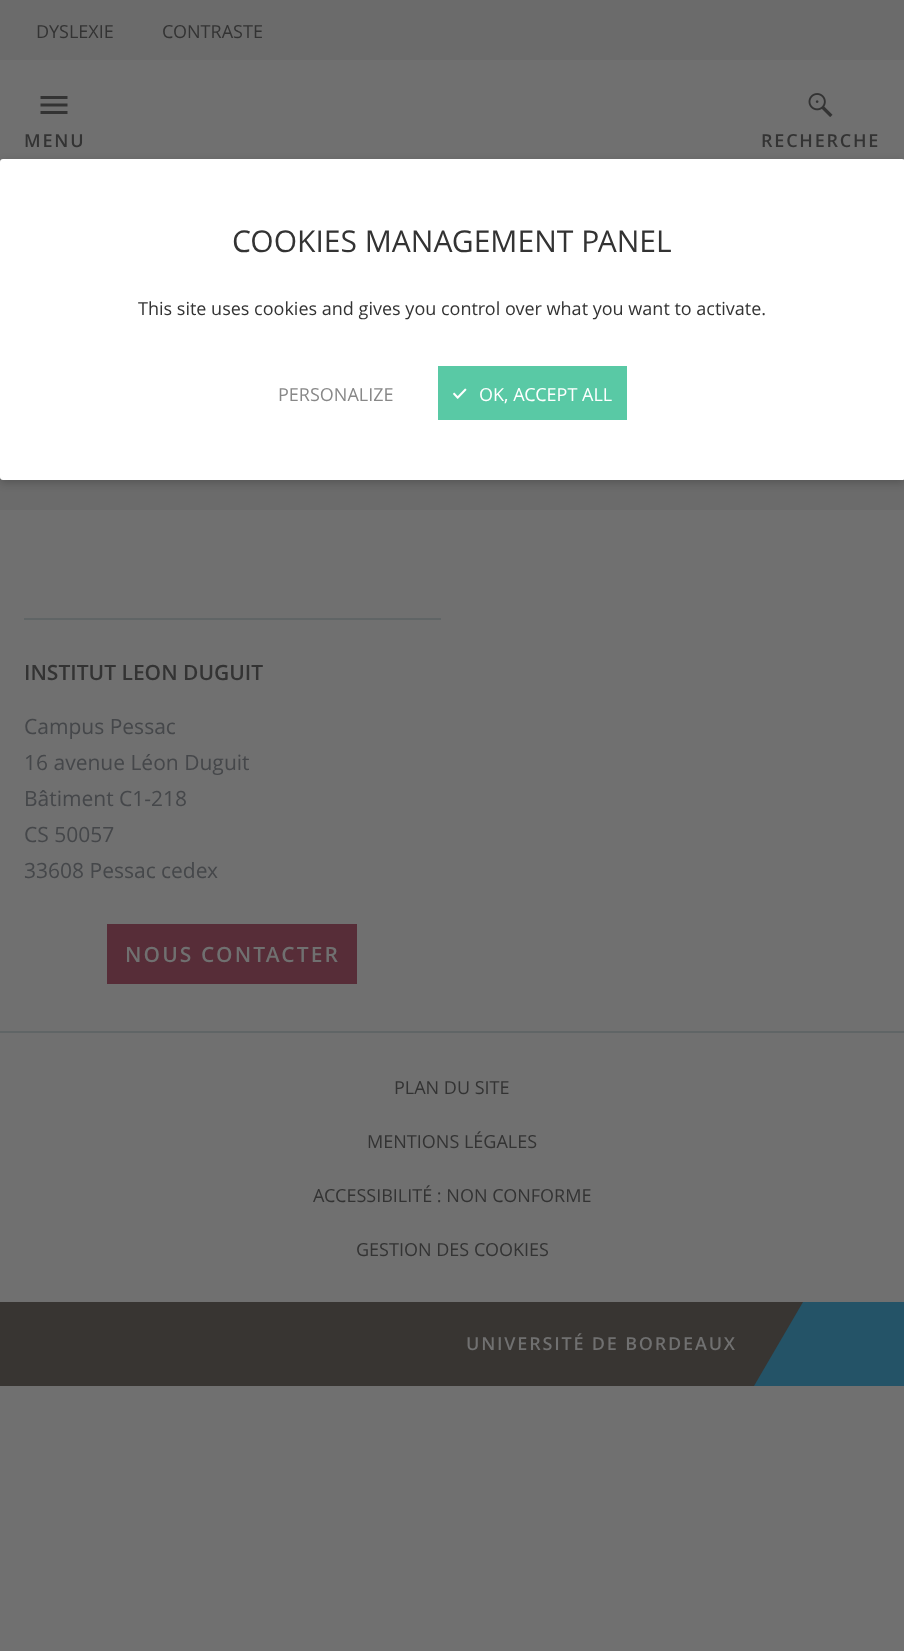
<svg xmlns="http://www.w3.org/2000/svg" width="904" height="1651">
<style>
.a{font:18px Open Sans;fill:#333}
.b{font:600 18px Open Sans;letter-spacing:1.8px;fill:#333}
.c{font:600 21px Open Sans;fill:#333}
.d{font:21px Open Sans;fill:#45474a}
.e{font:600 21px Open Sans;letter-spacing:2.1px;fill:#707070}
.f{font:600 18px Open Sans;letter-spacing:1.8px;fill:#707070}
.g{font:30px Open Sans;fill:#333}
.h{font:18px Open Sans;fill:#888}
.i{font:18px Open Sans;fill:#fff}
</style>
<rect width="100%" height="100%" fill="#707070"/>
<path fill="#6b6b6b" d="M0 0h904v60H0z"/>
<image href="1.png" x="40" y="96" width="28" height="18"/>
<image href="2.png" x="808" y="93" width="25" height="24"/>
<path fill="#6b6b6b" d="M0 477h904v33H0z"/>
<path fill="#606566" d="M24 618h417v2H24z"/>
<path fill="#572d38" d="M107 924h250v60H107z"/>
<path fill="#606566" d="M0 1031h904v2H0z"/>
<path fill="#383532" d="M0 1302h803v84H0z"/>
<path fill="#245367" d="M803 1302h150l-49 84h-150z"/>
<rect fill="#00000033" filter="blur(4.5px)" y="162" width="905" height="321" rx="3"/>
<rect fill="#fff" y="159" width="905" height="321" rx="3"/>
<path fill="#59c9a5" d="M438 366h189v54H438z"/>
<image href="3.png" x="453" y="388" width="14" height="11"/>
<text class="a" x="36" y="38">DYSLEXIE</text>
<text class="a" x="162" y="38">CONTRASTE</text>
<text class="b" x="24" y="147">MENU</text>
<text class="b" x="761" y="147">RECHERCHE</text>
<text class="c" x="24" y="680">INSTITUT LEON DUGUIT</text>
<text class="d" x="24" y="734">Campus Pessac</text>
<text class="d" x="24" y="770">16 avenue Léon Duguit</text>
<text class="d" x="24" y="806">Bâtiment C1-218</text>
<text class="d" x="24" y="842">CS 50057</text>
<text class="d" x="24" y="878">33608 Pessac cedex</text>
<text class="e" x="125" y="962">NOUS CONTACTER</text>
<text class="a" x="394" y="1094">PLAN DU SITE</text>
<text class="a" x="367" y="1148">MENTIONS LÉGALES</text>
<text class="a" x="313" y="1202">ACCESSIBILITÉ : NON CONFORME</text>
<text class="a" x="356" y="1256">GESTION DES COOKIES</text>
<text class="f" x="466" y="1350">UNIVERSITÉ DE BORDEAUX</text>
<text class="g" x="232" y="252">COOKIES MANAGEMENT PANEL</text>
<text class="a" x="138" y="315">This site uses cookies and gives you control over what you want to activate.</text>
<text class="h" x="278" y="401">PERSONALIZE</text>
<text class="i" x="479" y="401">OK, ACCEPT ALL</text>
</svg>
